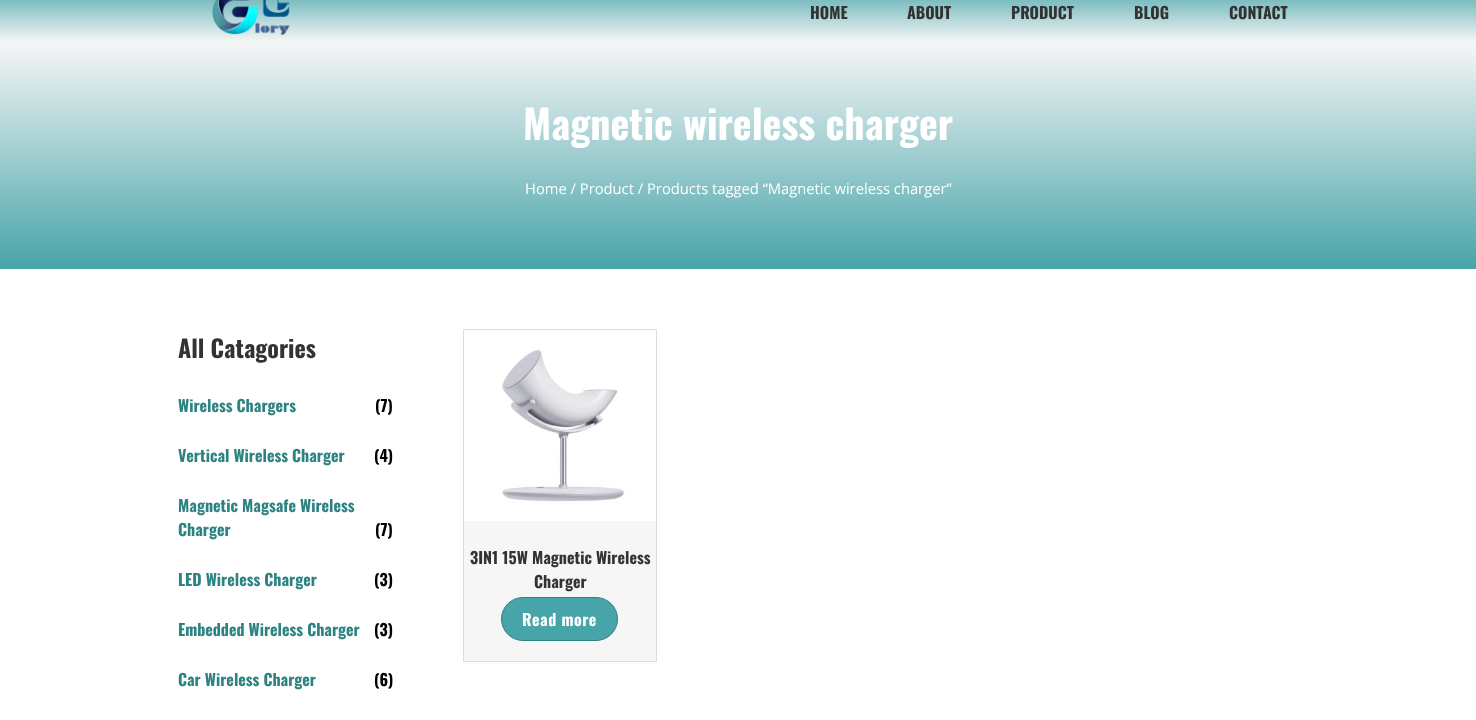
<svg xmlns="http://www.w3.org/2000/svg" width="1476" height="720">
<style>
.a{font:bold 16px Oswald;fill:#333}
.b{font:bold 40px Oswald;fill:#fff}
.c{font:14.75px Open Sans;fill:#fff}
.d{font:bold 24px Oswald;fill:#333}
.e{font:bold 16px Oswald;fill:#2d8282}
.f{font:bold 16px Oswald;fill:#000}
.g{font:bold 16px Oswald;letter-spacing:0.5px;fill:#fff}
</style>
<defs>
<linearGradient id="g1" gradientUnits="userSpaceOnUse" x1="738" y1="42" x2="738" y2="-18"><stop offset="0" stop-color="#f6f6f6"/><stop offset="1" stop-color="#47a4a9"/></linearGradient>
<linearGradient id="g2" gradientUnits="userSpaceOnUse" x1="738" y1="42" x2="738" y2="269"><stop offset="0" stop-color="#f6f6f6"/><stop offset="1" stop-color="#47a4a9"/></linearGradient>
</defs>
<rect width="100%" height="100%" fill="#fff"/>
<path fill="url(#g1)" d="M0 0h1476v42H0z"/>
<image href="1.png" x="212" y="0" width="78" height="36"/>
<path fill="url(#g2)" d="M0 42h1476v227H0z"/>
<path fill="#f6f6f6" d="M464 521h192v140H464z"/>
<path fill="none" stroke="#ddd" d="M463.5 329.5h193v332H463.5z"/>
<image href="2.png" x="464" y="330" width="192" height="191"/>
<rect fill="#47a4a9" stroke="#2d8282" x="501.5" y="597.5" width="116" height="43" rx="21.5"/>
<text class="a" x="810" y="19">HOME</text>
<text class="a" x="907" y="19">ABOUT</text>
<text class="a" x="1011" y="19">PRODUCT</text>
<text class="a" x="1134" y="19">BLOG</text>
<text class="a" x="1229" y="19">CONTACT</text>
<text class="b" x="523" y="140">Magnetic wireless charger</text>
<text class="c" x="525" y="194">Home / Product / Products tagged “Magnetic wireless charger”</text>
<text class="d" x="178" y="358">All Catagories</text>
<text class="e" x="178" y="412">Wireless Chargers</text>
<text class="f" x="375" y="412">(7)</text>
<text class="e" x="178" y="462">Vertical Wireless Charger</text>
<text class="f" x="374" y="462">(4)</text>
<text class="e" x="178" y="512">Magnetic Magsafe Wireless</text>
<text class="e" x="178" y="536">Charger</text>
<text class="f" x="375" y="536">(7)</text>
<text class="e" x="178" y="586">LED Wireless Charger</text>
<text class="f" x="374" y="586">(3)</text>
<text class="e" x="178" y="636">Embedded Wireless Charger</text>
<text class="f" x="374" y="636">(3)</text>
<text class="e" x="178" y="686">Car Wireless Charger</text>
<text class="f" x="374" y="686">(6)</text>
<text class="a" x="470" y="564">3IN1 15W Magnetic Wireless</text>
<text class="a" x="534" y="588">Charger</text>
<text class="g" x="522" y="626">Read more</text>
</svg>
